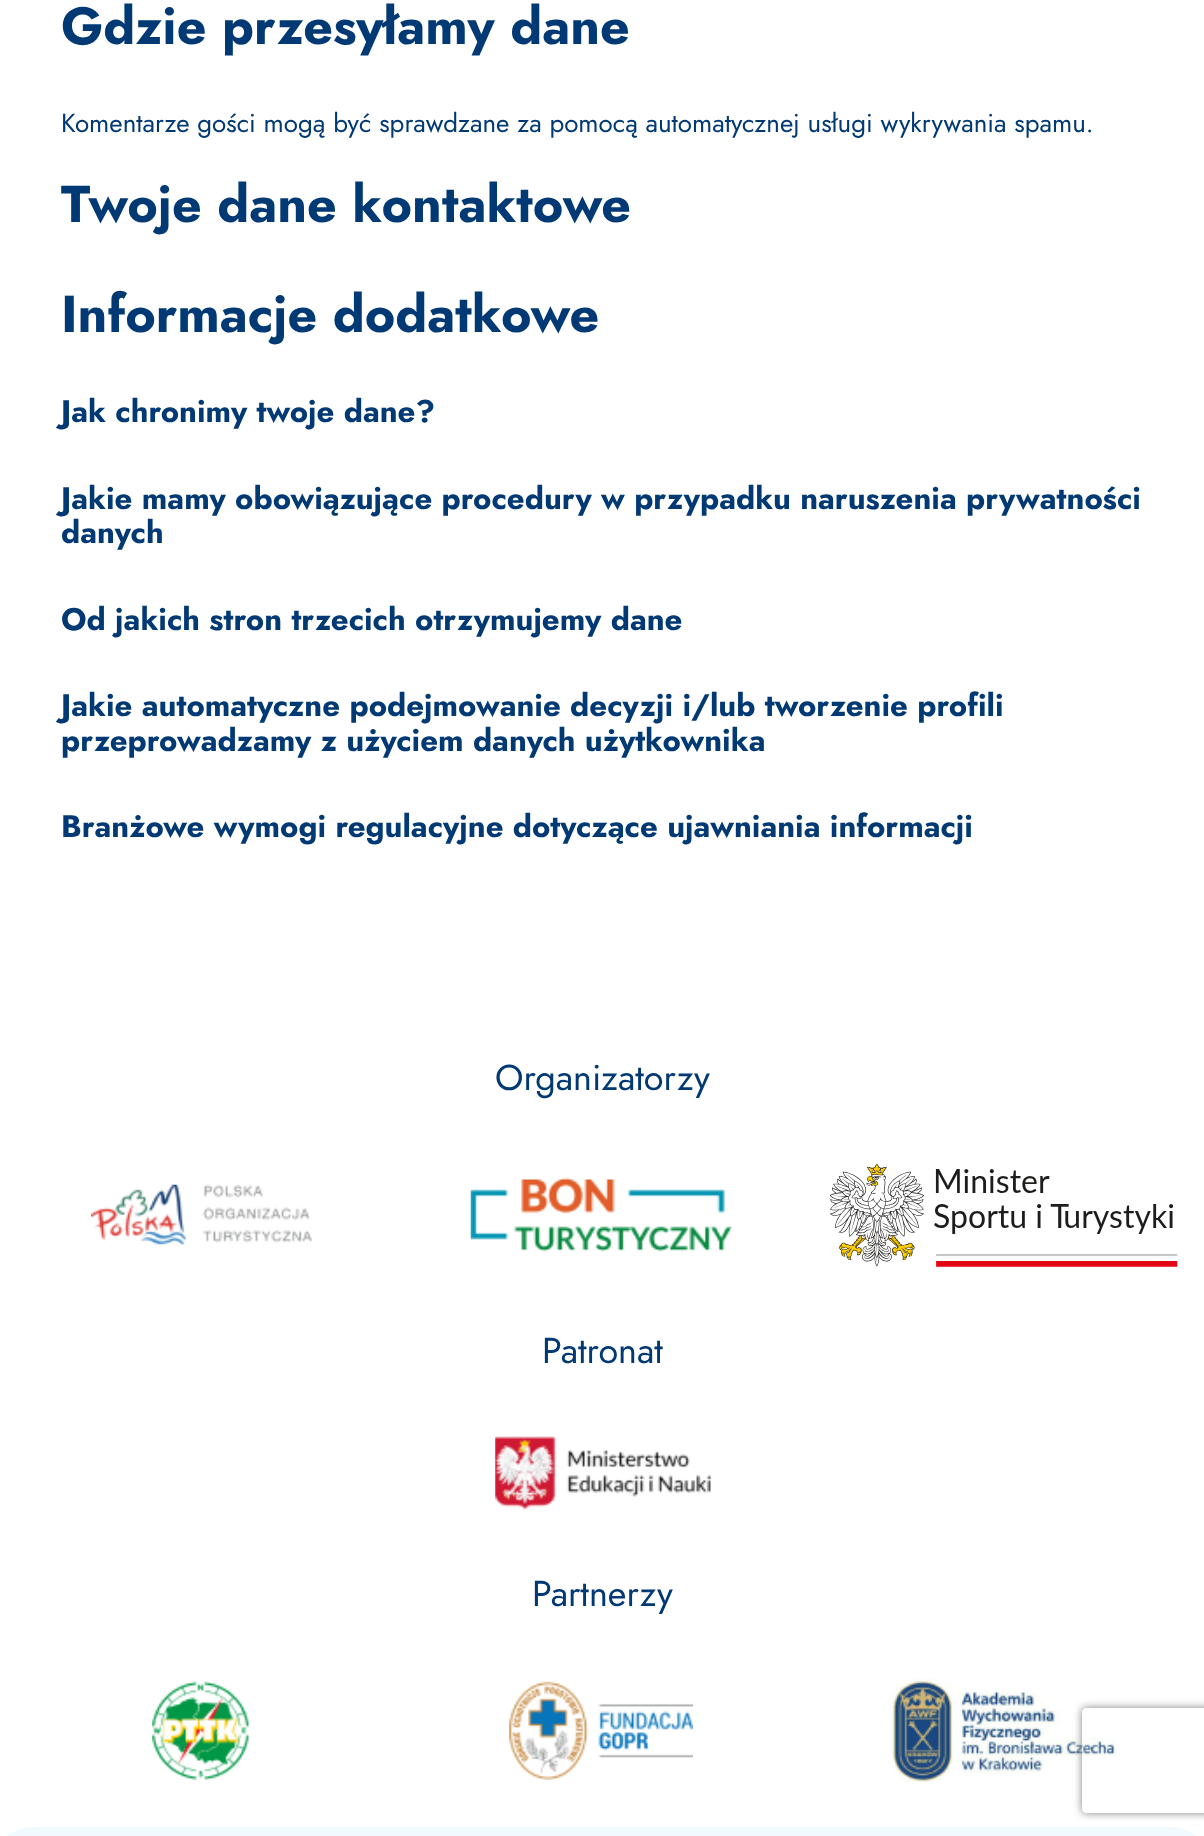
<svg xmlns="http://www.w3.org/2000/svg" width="1204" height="1836">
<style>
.a{font:bold 51.9px Jost;fill:#003973}
.b{font:25.95px Jost;fill:#003973}
.c{font:bold 31.15px Jost;fill:#003973}
.d{font:36px Jost;fill:#003973}
</style>
<defs>
<clipPath id="clip1"><path d="M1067 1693h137v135h-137zm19 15h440c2 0 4 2 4 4v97c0 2-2 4-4 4h-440c-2 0-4-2-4-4v-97c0-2 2-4 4-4z" clip-rule="evenodd"/></clipPath>
</defs>
<rect width="100%" height="100%" fill="#fff"/>
<image href="1.png" x="91" y="1184" width="221" height="61"/>
<image href="2.png" x="470" y="1177" width="262" height="75"/>
<image href="3.png" x="830" y="1164" width="348" height="103"/>
<image href="4.png" x="495" y="1436" width="216" height="75"/>
<image href="5.png" x="152" y="1681" width="97" height="99"/>
<image href="6.png" x="509" y="1681" width="184" height="99"/>
<image href="7.png" x="889" y="1678" width="229" height="104"/>
<rect fill="#f1faff" y="1827" width="1204" height="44" rx="35"/>
<g clip-path="url(#clip1)">
<rect fill="#808080" filter="blur(4.5px)" x="1082" y="1708" width="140" height="105" rx="4"/>
</g>
<text class="a" x="61" y="44">Gdzie przesyłamy dane</text>
<text class="b" x="61" y="132">Komentarze gości mogą być sprawdzane za pomocą automatycznej usługi wykrywania spamu.</text>
<text class="a" x="61" y="222">Twoje dane kontaktowe</text>
<text class="a" x="61" y="332">Informacje dodatkowe</text>
<text class="c" x="61" y="422">Jak chronimy twoje dane?</text>
<text class="c" x="61" y="509">Jakie mamy obowiązujące procedury w przypadku naruszenia prywatności</text>
<text class="c" x="61" y="543">danych</text>
<text class="c" x="61" y="630">Od jakich stron trzecich otrzymujemy dane</text>
<text class="c" x="61" y="716">Jakie automatyczne podejmowanie decyzji i/lub tworzenie profili</text>
<text class="c" x="61" y="751">przeprowadzamy z użyciem danych użytkownika</text>
<text class="c" x="61" y="837">Branżowe wymogi regulacyjne dotyczące ujawniania informacji</text>
<text class="d" x="495" y="1090">Organizatorzy</text>
<text class="d" x="542" y="1363">Patronat</text>
<text class="d" x="532" y="1606">Partnerzy</text>
</svg>
